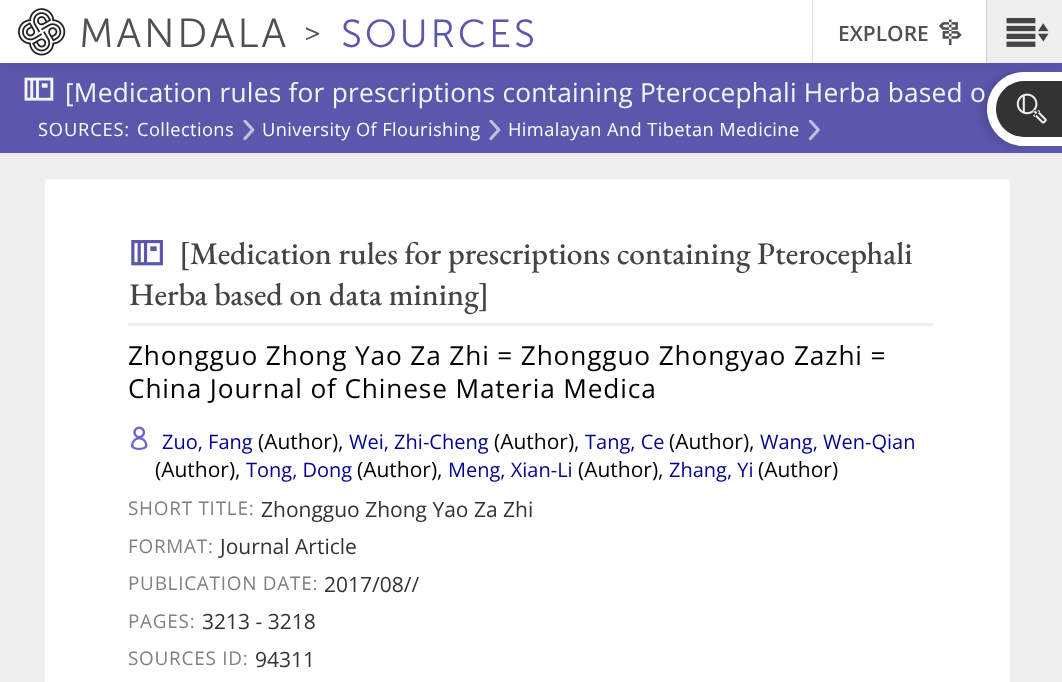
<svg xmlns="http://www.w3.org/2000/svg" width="1062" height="682">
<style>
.a{font:300 40.5px Museo Sans;letter-spacing:2.75px;fill:#505050}
.b{font:300 29px Museo Sans;letter-spacing:2.75px;fill:#505050}
.c{font:300 39px Museo Sans;letter-spacing:2.75px;fill:#5a57ad}
.d{font:600 21px Open Sans;fill:#505050}
.e{font:26.25px Open Sans;letter-spacing:0.25px;fill:#f5f5f5}
.f{font:18.25px Open Sans;letter-spacing:0.85px;fill:#fff}
.g{font:18.25px Open Sans;letter-spacing:0.4px;fill:#fff}
.h{font:500 31.5px EB Garamond;fill:#444}
.i{font:26.25px Open Sans;letter-spacing:0.85px;fill:#000}
.j{font:20px Open Sans;fill:#03038e}
.k{font:21px Open Sans;fill:#000}
.l{font:18.9px Open Sans;letter-spacing:0.75px;fill:#808080}
.m{font:21px Open Sans;fill:#333}
</style>
<rect width="100%" height="100%" fill="#eee"/>
<path fill="#5a57ad" d="M0 63h1062v90H0z"/>
<image href="4.png" x="24" y="77" width="30" height="24"/>
<path fill="#00000012" filter="blur(4px)" d="M0 2h1062v63H0z"/>
<path fill="#fff" d="M0 0h812v63H0z"/>
<image href="1.png" x="18" y="8" width="48" height="48"/>
<path fill="#ddd" d="M812 0h1v63H812z"/>
<path fill="#fff" d="M813 0h173v63H813z"/>
<image href="2.png" x="938" y="19" width="24" height="27"/>
<path fill="#d0d0d0" d="M986 0h1v63H986z"/>
<path fill="#eee" d="M987 0h75v63H987z"/>
<image href="3.png" x="1006" y="18" width="43" height="29"/>
<image href="5.png" x="243" y="120" width="12" height="21"/>
<image href="5.png" x="489" y="120" width="12" height="21"/>
<image href="6.png" x="808" y="120" width="12" height="21"/>
<rect fill="#fff" stroke="#fff" stroke-width="2" x="46" y="180" width="963" height="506" rx="2"/>
<image href="7.png" x="131" y="240" width="32" height="26"/>
<path fill="#eee" d="M128 323h805v3H128z"/>
<image href="8.png" x="131" y="426" width="17" height="24"/>
<rect fill="#0000001f" filter="blur(3px)" x="981" y="72" width="75" height="74" rx="37"/>
<path fill="#fff" d="M1024 72h38v74h-38c-20.5 0-37-16.5-37-37c0-20.5 16.5-37 37-37z"/>
<path fill="#333" d="M1024 81h38v56h-38c-15.5 0-28-12.5-28-28c0-15.5 12.5-28 28-28z"/>
<image href="9.png" x="1016" y="93" width="31" height="31"/>
<text class="a" x="79" y="47">MANDALA</text>
<text class="b" x="304" y="42">&gt;</text>
<text class="c" x="341" y="47">SOURCES</text>
<text class="d" x="838" y="41">EXPLORE</text>
<text class="e" x="65" y="102">[Medication rules for prescriptions containing Pterocephali Herba based o</text>
<text class="f" x="38" y="136">SOURCES:</text>
<text class="g" x="137" y="136">Collections</text>
<text class="g" x="262" y="136">University Of Flourishing</text>
<text class="g" x="508" y="136">Himalayan And Tibetan Medicine</text>
<text class="h" x="179" y="264">[Medication rules for prescriptions containing Pterocephali</text>
<text class="h" x="129" y="305">Herba based on data mining]</text>
<text class="i" x="128" y="365">Zhongguo Zhong Yao Za Zhi = Zhongguo Zhongyao Zazhi =</text>
<text class="i" x="128" y="398">China Journal of Chinese Materia Medica</text>
<text class="j" x="162" y="449">Zuo, Fang</text>
<text class="k" x="258" y="449">(Author),</text>
<text class="j" x="349" y="449">Wei, Zhi-Cheng</text>
<text class="k" x="494" y="449">(Author),</text>
<text class="j" x="585" y="449">Tang, Ce</text>
<text class="k" x="669" y="449">(Author),</text>
<text class="j" x="760" y="449">Wang, Wen-Qian</text>
<text class="k" x="155" y="477">(Author),</text>
<text class="j" x="246" y="477">Tong, Dong</text>
<text class="k" x="357" y="477">(Author),</text>
<text class="j" x="448" y="477">Meng, Xian-Li</text>
<text class="k" x="578" y="477">(Author),</text>
<text class="j" x="669" y="477">Zhang, Yi</text>
<text class="k" x="758" y="477">(Author)</text>
<text class="l" x="128" y="515">SHORT TITLE:</text>
<text class="m" x="261" y="517">Zhongguo Zhong Yao Za Zhi</text>
<text class="l" x="128" y="553">FORMAT:</text>
<text class="m" x="220" y="554">Journal Article</text>
<text class="l" x="128" y="590">PUBLICATION DATE:</text>
<text class="m" x="324" y="592">2017/08//</text>
<text class="l" x="128" y="628">PAGES:</text>
<text class="m" x="202" y="629">3213 - 3218</text>
<text class="l" x="128" y="665">SOURCES ID:</text>
<text class="m" x="255" y="667">94311</text>
</svg>
